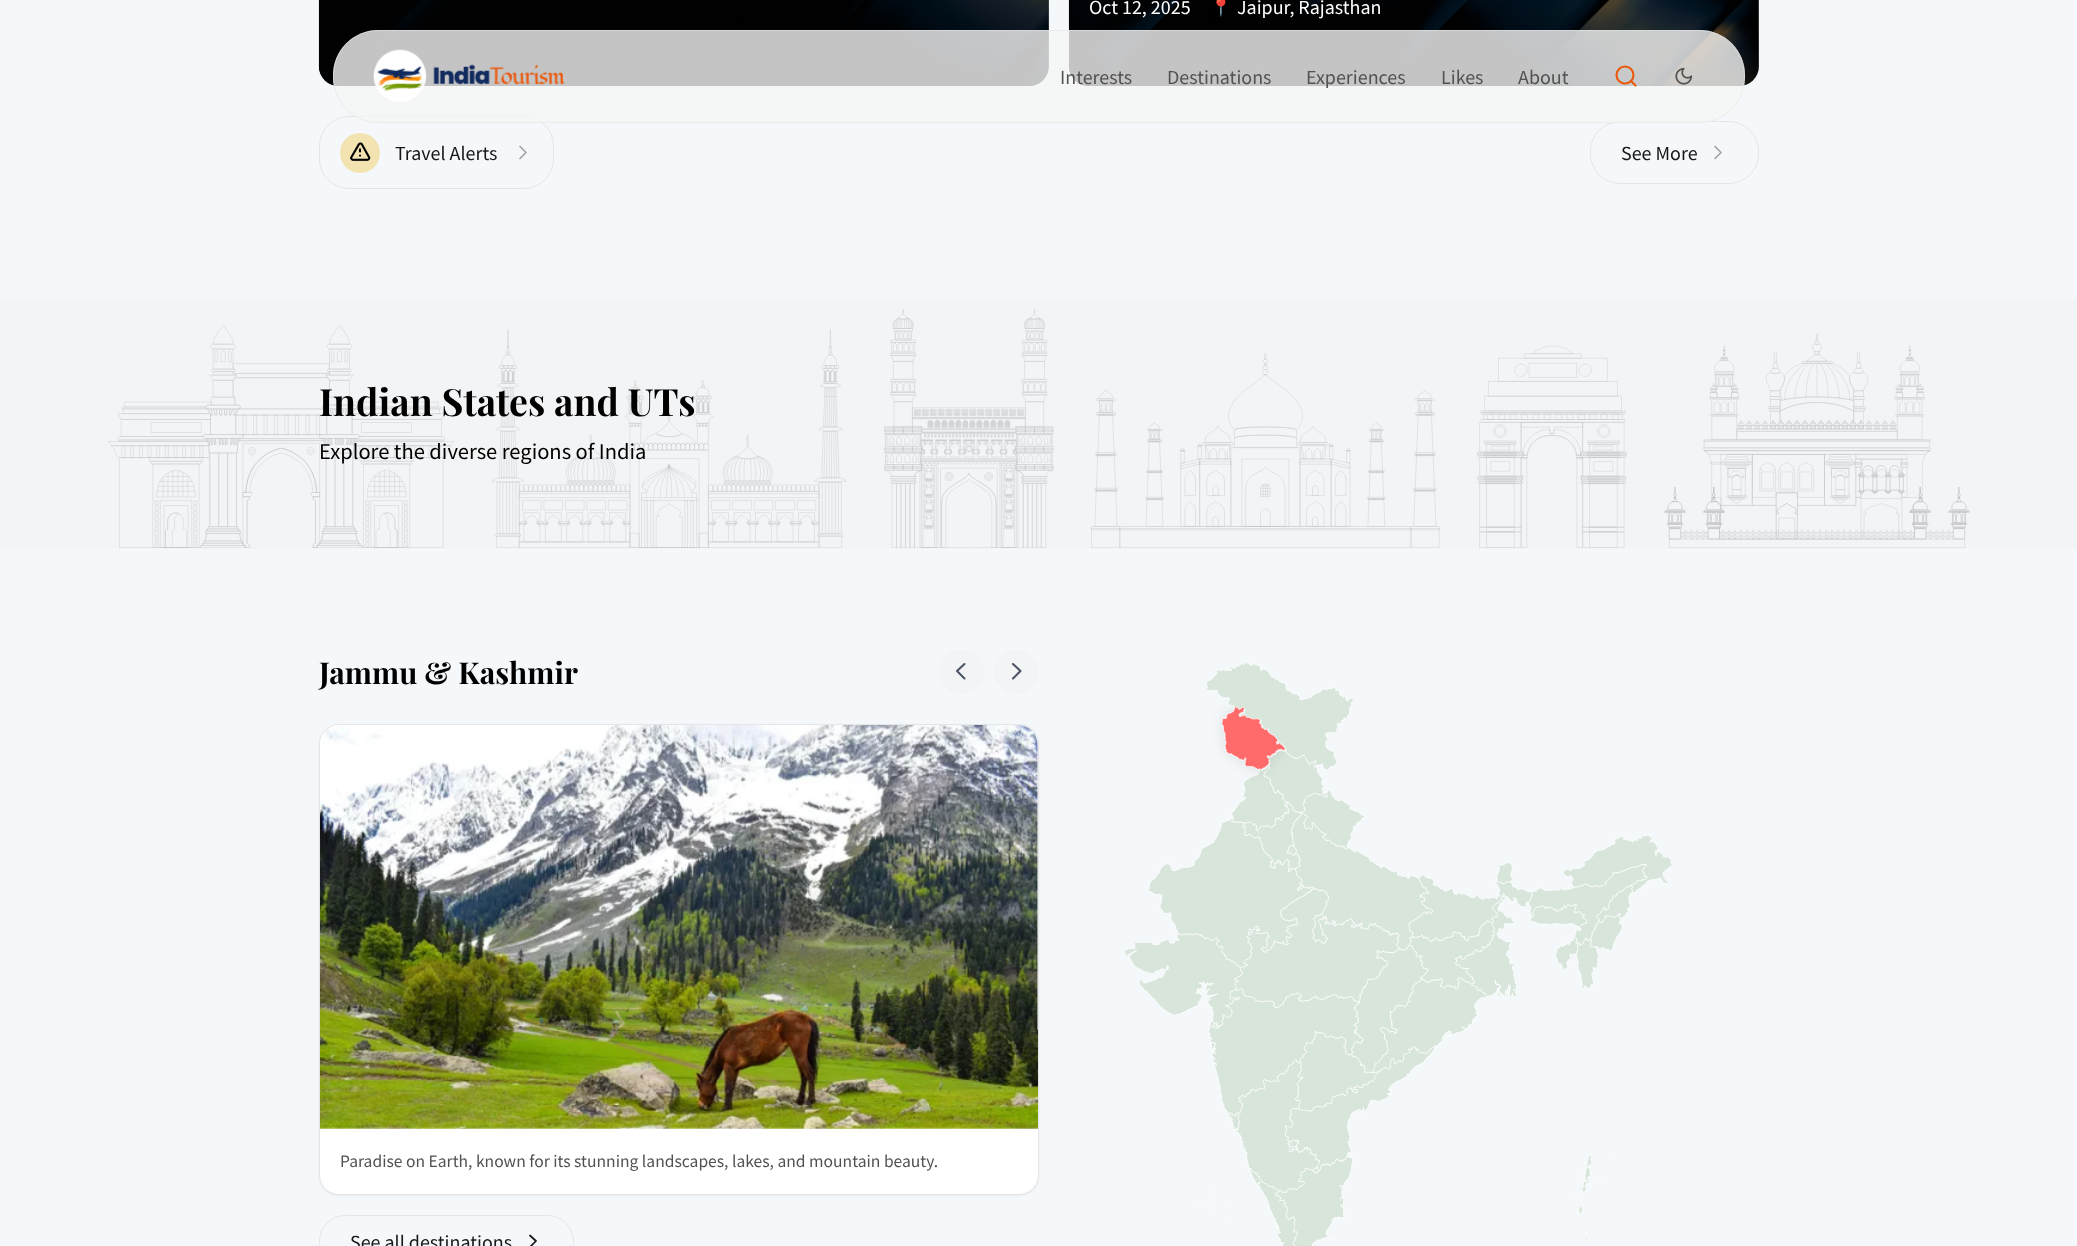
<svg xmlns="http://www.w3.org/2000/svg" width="2077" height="1246">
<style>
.a{font:20px Source Sans Pro;fill:#fff}
.b{font:17.5px Noto Color Emoji;fill:#fff}
.c{font:20px Source Sans Pro;fill:#171717}
.d{font:bold 37.5px Playfair Display;fill:#000}
.e{font:22.5px Source Sans Pro;fill:#000}
.f{font:bold 30px Playfair Display;fill:#000}
.g{font:17.5px Source Sans Pro;fill:#525252}
.h{font:20px Source Sans Pro;fill:#525252}
</style>
<defs>
<linearGradient id="g1" gradientUnits="userSpaceOnUse" x1="684" y1="-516" x2="684" y2="86"><stop offset="0" stop-color="#000" stop-opacity="0"/><stop offset="0.5" stop-color="#000" stop-opacity="0.35"/><stop offset="1" stop-color="#000" stop-opacity="0.7"/></linearGradient>
<linearGradient id="g2" gradientUnits="userSpaceOnUse" x1="1414" y1="-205" x2="1414" y2="86"><stop offset="0" stop-color="#000" stop-opacity="0"/><stop offset="0.5" stop-color="#000" stop-opacity="0.35"/><stop offset="1" stop-color="#000" stop-opacity="0.7"/></linearGradient>
</defs>
<rect width="100%" height="100%" fill="#f5f8fa"/>
<image href="1.png" x="318" y="0" width="731" height="86"/>
<rect fill="url(#g1)" x="319" y="-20" width="730" height="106" rx="20"/>
<image href="2.png" x="1068" y="0" width="691" height="86"/>
<rect fill="url(#g2)" x="1069" y="-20" width="690" height="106" rx="20"/>
<rect fill="none" stroke="#e5e5e5" x="319.5" y="116.5" width="234" height="72" rx="29.5"/>
<circle fill="#f2e3b1" cx="360" cy="153" r="20"/>
<image href="3.png" x="350" y="142" width="21" height="19"/>
<path fill="none" stroke="#a3a3a3" stroke-width="1.7" stroke-linecap="round" stroke-linejoin="round" d="M520 146.5l6 6l-6 6"/>
<rect fill="none" stroke="#e5e5e5" x="1590.5" y="121.5" width="168" height="62" rx="29.5"/>
<path fill="none" stroke="#a3a3a3" stroke-width="1.7" stroke-linecap="round" stroke-linejoin="round" d="M1715 146.5l6 6l-6 6"/>
<path fill="#f3f4f6" d="M0 299h2077v250H0z"/>
<image href="4.png" x="108" y="309" width="1862" height="239"/>
<circle fill="#f3f4f6" cx="961.5" cy="671.5" r="22.5"/>
<path fill="none" stroke="#4b5563" stroke-width="2.1" stroke-linecap="round" stroke-linejoin="round" d="M964.5 678.5l-7.5-7.5l7.5-7"/>
<circle fill="#f3f4f6" cx="1016.5" cy="671.5" r="22.5"/>
<path fill="none" stroke="#4b5563" stroke-width="2.1" stroke-linecap="round" stroke-linejoin="round" d="M1013 664l7.5 7l-7.5 7.5"/>
<rect fill="#0000000d" filter="blur(1px)" x="319" y="725" width="720" height="471" rx="20"/>
<rect fill="#fff" stroke="#e5e5e5" x="319.5" y="724.5" width="719" height="470" rx="19.5"/>
<image href="5.png" x="320" y="725" width="718" height="404"/>
<rect fill="none" stroke="#e5e5e5" x="319.5" y="1215.5" width="254" height="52" rx="26"/>
<path fill="none" stroke="#171717" stroke-width="1.7" stroke-linecap="round" stroke-linejoin="round" d="M530 1235.5l6 5.5l-6 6"/>
<image href="6.png" x="1124" y="663" width="548" height="583"/>
<rect fill="#f5f5f5cc" x="333" y="30" width="1412" height="93" rx="45"/>
<rect fill="none" stroke="#e5e5e599" x="333.5" y="30.5" width="1411" height="92" rx="44.5"/>
<image href="7.png" x="373" y="49" width="192" height="53"/>
<path fill="none" stroke="#ea580c" stroke-width="2.1" stroke-linecap="round" stroke-linejoin="round" d="M1635.5 85.5l-4.5-4.5"/>
<circle fill="none" stroke="#ea580c" stroke-width="2.1" cx="1625" cy="75" r="8.5"/>
<image href="8.png" x="1675" y="67" width="18" height="18"/>
<text class="a" x="1089" y="14">Oct 12, 2025</text>
<text class="b" x="1210" y="13">📍</text>
<text class="a" x="1237" y="14">Jaipur, Rajasthan</text>
<text class="c" x="395" y="160">Travel Alerts</text>
<text class="c" x="1621" y="160">See More</text>
<text class="d" x="319" y="416">Indian States and UTs</text>
<text class="e" x="319" y="459">Explore the diverse regions of India</text>
<text class="f" x="319" y="684">Jammu &amp; Kashmir</text>
<text class="g" x="340" y="1167">Paradise on Earth, known for its stunning landscapes, lakes, and mountain beauty.</text>
<text class="c" x="350" y="1249">See all destinations</text>
<text class="h" x="1060" y="84">Interests</text>
<text class="h" x="1167" y="84">Destinations</text>
<text class="h" x="1306" y="84">Experiences</text>
<text class="h" x="1441" y="84">Likes</text>
<text class="h" x="1518" y="84">About</text>
</svg>
